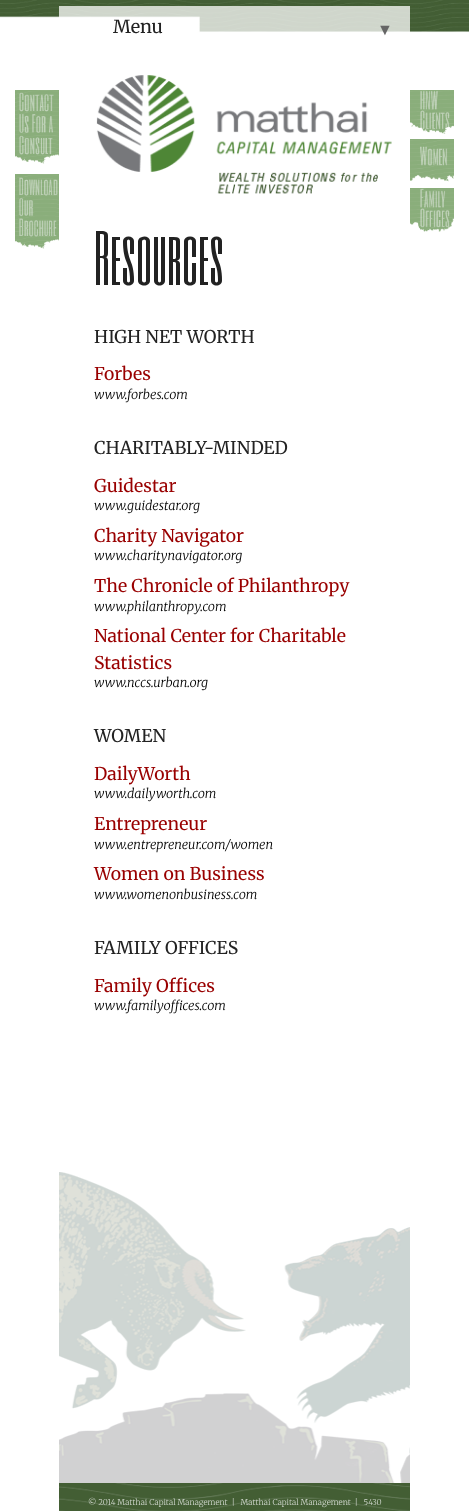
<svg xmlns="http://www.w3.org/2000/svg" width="469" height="1511">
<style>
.a{font:18px Merriweather;fill:#222}
.b{font:16px Liberation Serif;fill:#666}
.c{font:64px Six Caps;fill:#222}
.d{font:17.6px Merriweather;fill:#222}
.e{font:17.6px Merriweather;fill:#900}
.f{font:italic 300 12.75px Merriweather;fill:#000}
.g{font:300 8px Merriweather;fill:#d0d7cd}
</style>
<rect width="100%" height="100%" fill="#fff"/>
<image href="1.png" x="0" y="0" width="469" height="33"/>
<image href="2.png" x="15" y="90" width="44" height="74"/>
<image href="3.png" x="15" y="174" width="44" height="75"/>
<path fill="#ffffffbf" d="M59 6h351v27H59z"/>
<image href="4.png" x="96" y="75" width="296" height="119"/>
<image href="5.png" x="59" y="1172" width="351" height="339"/>
<image href="6.png" x="410" y="90" width="44" height="44"/>
<image href="7.png" x="410" y="139" width="44" height="43"/>
<image href="8.png" x="410" y="188" width="44" height="44"/>
<text class="a" x="113" y="33">Menu</text>
<text class="b" x="377" y="35">▼</text>
<text class="c" x="94" y="285">Resources</text>
<text class="d" x="94" y="343">HIGH NET WORTH</text>
<text class="e" x="94" y="380">Forbes</text>
<text class="f" x="94" y="399">www.forbes.com</text>
<text class="d" x="94" y="454">CHARITABLY-MINDED</text>
<text class="e" x="94" y="492">Guidestar</text>
<text class="f" x="94" y="510">www.guidestar.org</text>
<text class="e" x="94" y="542">Charity Navigator</text>
<text class="f" x="94" y="560">www.charitynavigator.org</text>
<text class="e" x="94" y="592">The Chronicle of Philanthropy</text>
<text class="f" x="94" y="611">www.philanthropy.com</text>
<text class="e" x="94" y="642">National Center for Charitable</text>
<text class="e" x="94" y="669">Statistics</text>
<text class="f" x="94" y="687">www.nccs.urban.org</text>
<text class="d" x="94" y="742">WOMEN</text>
<text class="e" x="94" y="780">DailyWorth</text>
<text class="f" x="94" y="798">www.dailyworth.com</text>
<text class="e" x="94" y="830">Entrepreneur</text>
<text class="f" x="94" y="849">www.entrepreneur.com/women</text>
<text class="e" x="94" y="880">Women on Business</text>
<text class="f" x="94" y="899">www.womenonbusiness.com</text>
<text class="d" x="94" y="954">FAMILY OFFICES</text>
<text class="e" x="94" y="992">Family Offices</text>
<text class="f" x="94" y="1010">www.familyoffices.com</text>
<text class="g" xml:space="preserve" x="88" y="1505">© 2014 Matthai Capital Management  |   Matthai Capital Management  |   5430</text>
</svg>
